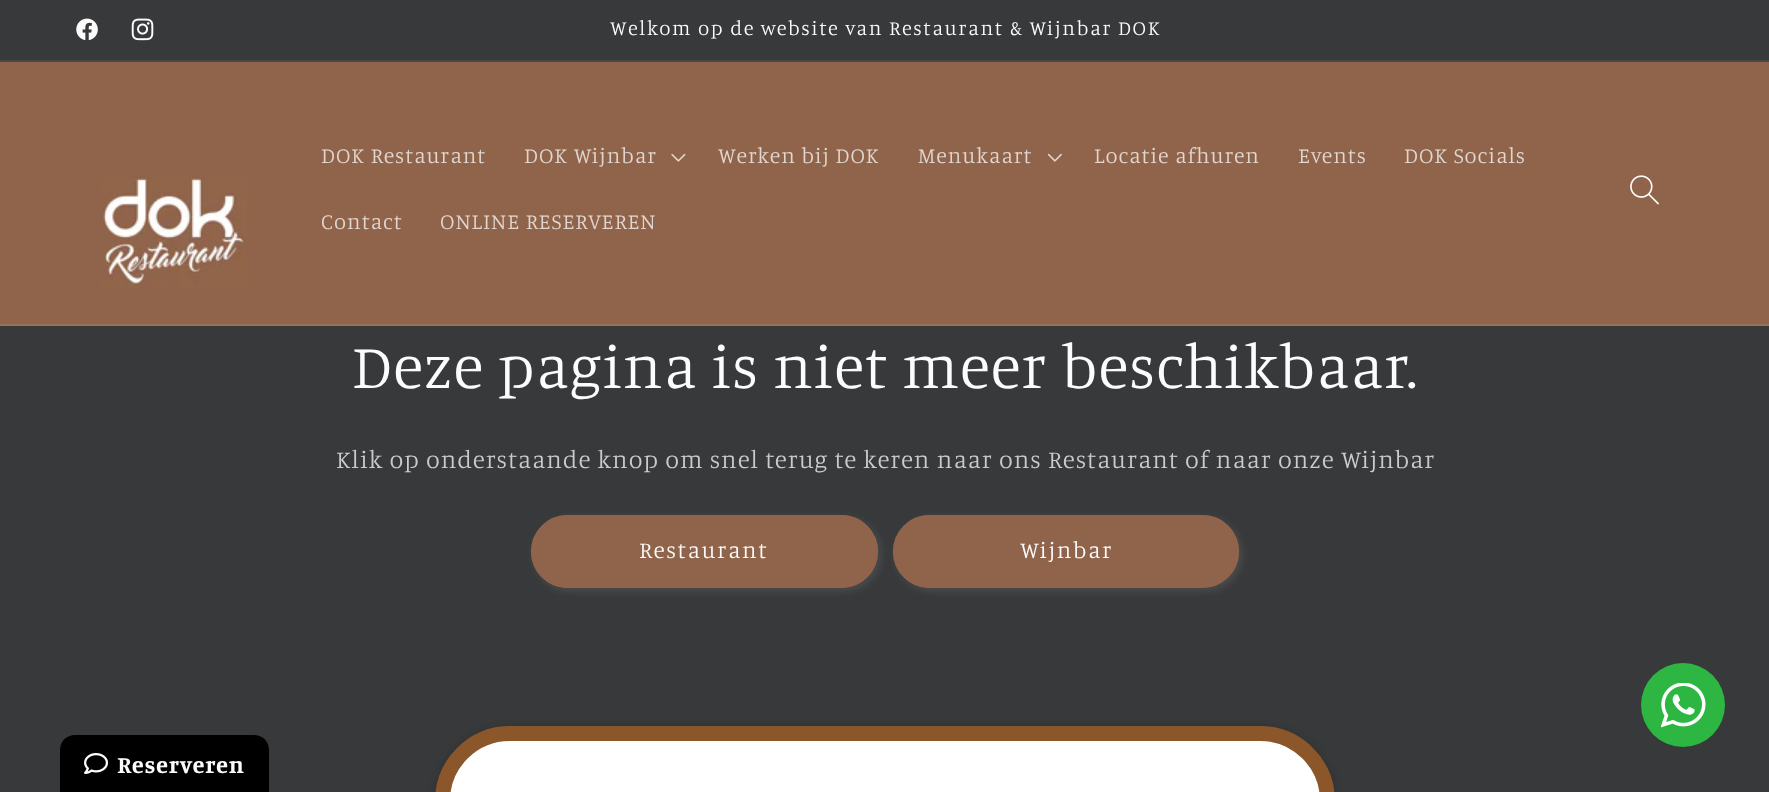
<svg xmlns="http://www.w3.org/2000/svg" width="1769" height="792">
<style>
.a{font:300 20.5px Manuale;letter-spacing:1.6px;fill:#fcfcfc}
.b{font:300 22px Manuale;letter-spacing:0.95px;fill:#e1d6d0}
.c{font:300 63px Manuale;letter-spacing:0.95px;fill:#fcfcfc}
.d{font:300 25.2px Manuale;letter-spacing:0.95px;fill:#cbcbcc}
.e{font:300 23.5px Manuale;letter-spacing:1.6px;fill:#fcfcfc}
.f{font:bold 24px Manuale;letter-spacing:0.95px;fill:#fcfcfc}
</style>
<rect width="100%" height="100%" fill="#37393a"/>
<path fill="#47494a" d="M0 60h1769v2H0z"/>
<image href="1.png" x="76" y="18" width="22" height="23"/>
<image href="2.png" x="131" y="18" width="23" height="23"/>
<path fill="#90644b" d="M0 62h1769v262H0z"/>
<path fill="#997059" d="M0 324h1769v2H0z"/>
<image href="3.png" x="102" y="177" width="145" height="111"/>
<image href="4.png" x="671" y="153" width="15" height="9"/>
<image href="5.png" x="1047" y="153" width="15" height="9"/>
<image href="6.png" x="1630" y="175" width="29" height="30"/>
<rect fill="#fcfcfc1a" filter="blur(4px)" x="534" y="518" width="347" height="73" rx="36.5"/>
<rect fill="#90644b" x="531" y="515" width="347" height="73" rx="36.5"/>
<rect fill="none" stroke="#90644b" stroke-width="2" x="532" y="516" width="345" height="71" rx="35.5"/>
<rect fill="#fcfcfc1a" filter="blur(4px)" x="896" y="518" width="346" height="73" rx="36.5"/>
<rect fill="#90644b" x="893" y="515" width="346" height="73" rx="36.5"/>
<rect fill="none" stroke="#90644b" stroke-width="2" x="894" y="516" width="344" height="71" rx="35.5"/>
<rect fill="#00000033" filter="blur(4px)" x="435" y="728" width="900" height="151" rx="75"/>
<rect fill="#fff" stroke="#8b572a" stroke-width="15" x="442.5" y="733.5" width="885" height="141" rx="67.5"/>
<circle fill="#2db742" cx="1683" cy="705" r="42"/>
<image href="7.png" x="1661" y="683" width="45" height="45"/>
<path fill="#000" d="M75 735h179c8.5 0 15 6.5 15 15v42h-209v-42c0-8.5 6.5-15 15-15z"/>
<image href="8.png" x="84" y="753" width="24" height="21"/>
<text class="a" x="610" y="35">Welkom op de website van Restaurant &amp; Wijnbar DOK</text>
<text class="b" x="321" y="163">DOK Restaurant</text>
<text class="b" x="524" y="163">DOK Wijnbar</text>
<text class="b" x="718" y="163">Werken bij DOK</text>
<text class="b" x="918" y="163">Menukaart</text>
<text class="b" x="1094" y="163">Locatie afhuren</text>
<text class="b" x="1298" y="163">Events</text>
<text class="b" x="1404" y="163">DOK Socials</text>
<text class="b" x="321" y="229">Contact</text>
<text class="b" x="440" y="229">ONLINE RESERVEREN</text>
<text class="c" x="352" y="388">Deze pagina is niet meer beschikbaar.</text>
<text class="d" x="336" y="468">Klik op onderstaande knop om snel terug te keren naar ons Restaurant of naar onze Wijnbar</text>
<text class="e" x="639" y="558">Restaurant</text>
<text class="e" x="1020" y="558">Wijnbar</text>
<text class="f" x="117" y="773">Reserveren</text>
</svg>
